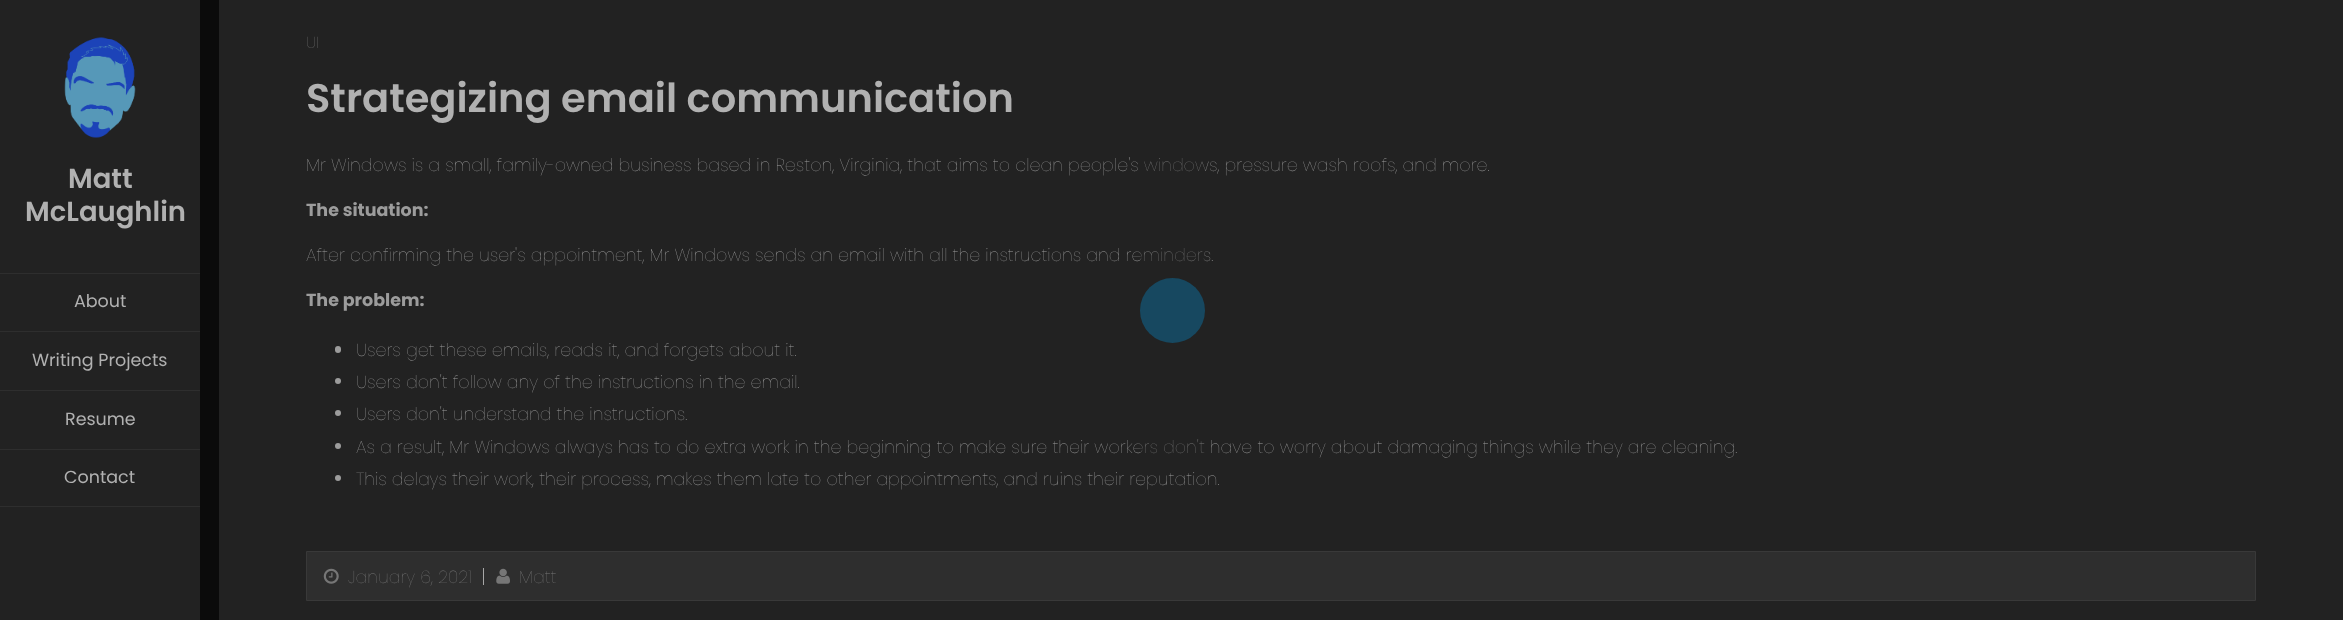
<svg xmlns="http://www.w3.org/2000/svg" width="2343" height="620">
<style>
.a{font:600 27.5px Poppins;fill:#b1b1b1}
.b{font:17.5px Poppins;fill:#b1b1b1}
.c{font:200 16px Poppins;fill:#767676}
.d{font:600 40px Poppins;fill:#b1b1b1}
.e{font:200 17.5px Poppins;fill:#9c9c9c}
.f{font:bold 17.5px Poppins;fill:#9c9c9c}
.g{font:200 17.5px Poppins;fill:#767676}
</style>
<rect width="100%" height="100%" fill="#0b0b0b"/>
<path fill="#222" d="M0 0h200v620H0z"/>
<image href="1.png" x="64" y="37" width="72" height="101"/>
<path fill="#2e2e2e" d="M0 273h200v1H0z"/>
<path fill="#2e2e2e" d="M0 331h200v1H0z"/>
<path fill="#2e2e2e" d="M0 390h200v1H0z"/>
<path fill="#2e2e2e" d="M0 449h200v1H0z"/>
<path fill="#2e2e2e" d="M0 506h200v1H0z"/>
<path fill="#222" d="M219 0h2124v620H219z"/>
<rect fill="#9c9c9c" x="335" y="346" width="6" height="7" rx="3"/>
<circle fill="#9c9c9c" cx="338" cy="381" r="3"/>
<circle fill="#9c9c9c" cx="338" cy="413" r="3"/>
<circle fill="#9c9c9c" cx="338" cy="446" r="3"/>
<circle fill="#9c9c9c" cx="338" cy="478" r="3"/>
<path fill="#2e2e2e" stroke="#393939" d="M306.5 551.5h1949v49H306.5z"/>
<image href="2.png" x="323" y="568" width="16" height="16"/>
<path fill="#a7a7a7" d="M483 568h1v17H483z"/>
<image href="3.png" x="496" y="568" width="14" height="16"/>
<text class="a" x="68" y="188">Matt</text>
<text class="a" x="25" y="221">McLaughlin</text>
<text class="b" x="74" y="307">About</text>
<text class="b" x="32" y="366">Writing Projects</text>
<text class="b" x="65" y="425">Resume</text>
<text class="b" x="64" y="483">Contact</text>
<text class="c" x="306" y="48">UI</text>
<text class="d" x="306" y="112">Strategizing email communication</text>
<text class="e" x="306" y="171">Mr Windows is a small, family-owned business based in Reston, Virginia, that aims to clean people's windows, pressure wash roofs, and more.</text>
<text class="f" x="306" y="216">The situation:</text>
<text class="e" x="306" y="261">After confirming the user's appointment, Mr Windows sends an email with all the instructions and reminders.</text>
<text class="f" x="306" y="306">The problem:</text>
<text class="e" x="356" y="356">Users get these emails, reads it, and forgets about it.</text>
<text class="e" x="356" y="388">Users don't follow any of the instructions in the email.</text>
<text class="e" x="356" y="420">Users don't understand the instructions.</text>
<text class="e" x="356" y="453">As a result, Mr Windows always has to do extra work in the beginning to make sure their workers don't have to worry about damaging things while they are cleaning.</text>
<text class="e" x="356" y="485">This delays their work, their process, makes them late to other appointments, and ruins their reputation.</text>
<text class="g" x="348" y="583">January 6, 2021</text>
<text class="g" x="519" y="583">Matt</text>
<path fill="#22222252" d="M1140 158h65v296H1140z"/>
<circle fill="#174860" cx="1172.5" cy="310.5" r="32.5"/>
</svg>
